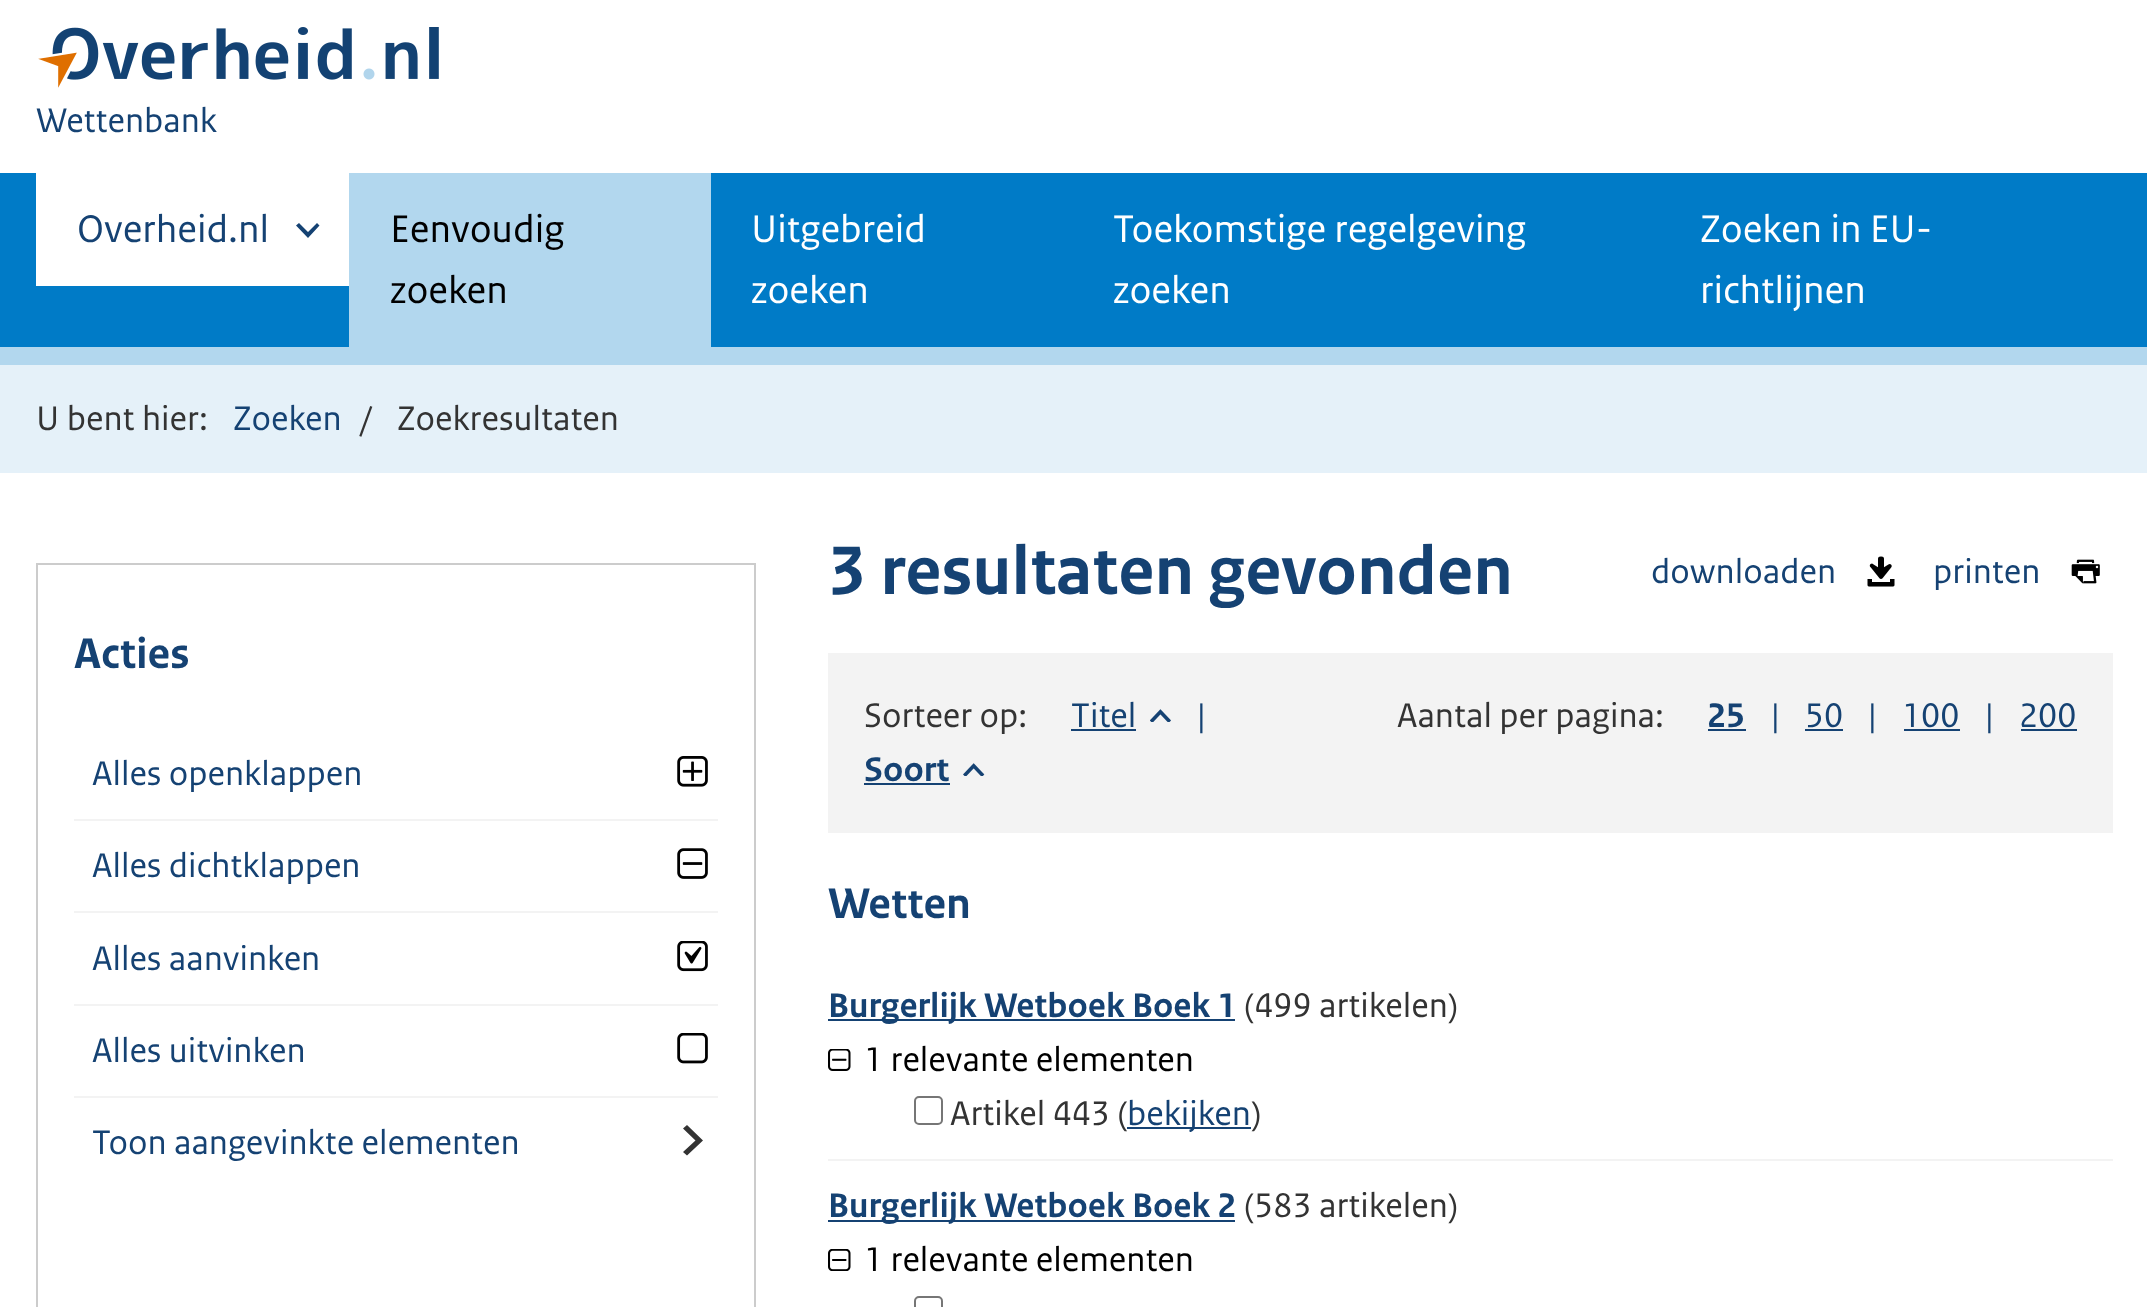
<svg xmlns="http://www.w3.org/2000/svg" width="2147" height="1307">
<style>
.a{font:36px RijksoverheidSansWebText;fill:#154273}
.b{font:40.5px RijksoverheidSansWebText;fill:#154273}
.c{font:40.5px RijksoverheidSansWebText;fill:#000}
.d{font:40.5px RijksoverheidSansWebText;fill:#fff}
.e{font:36px RijksoverheidSansWebText;fill:#333}
.f{font:bold 45px RijksoverheidSansWebText;fill:#154273}
.g{font:bold 72px RijksoverheidSansWebText;fill:#154273}
.h{font:bold 36px RijksoverheidSansWebText;fill:#154273}
.i{font:36px RijksoverheidSansWebText;fill:#000}
</style>
<rect width="100%" height="100%" fill="#fff"/>
<path fill="#b2d7ee" d="M0 347h2147v18H0z"/>
<image href="1.png" x="38" y="27" width="401" height="61"/>
<path fill="#007bc7" d="M0 173h2147v174H0z"/>
<path fill="#fff" d="M36 173h313v113H36z"/>
<path fill="#154273" d="M319.5 225.5l-2.5-2.5l-9 9l-9-9l-3 2.5l12 12.5z"/>
<path fill="#b2d7ee" d="M349 173h362v174H349z"/>
<path fill="#e5f1f9" d="M0 365h2147v108H0z"/>
<path fill="none" stroke="#ccc" stroke-width="2" d="M37 564h718v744H37z"/>
<path fill="#f3f3f3" d="M74 819h644v2H74z"/>
<image href="2.png" x="677" y="756" width="31" height="31"/>
<path fill="#f3f3f3" d="M74 911h644v2H74z"/>
<image href="3.png" x="677" y="848" width="31" height="31"/>
<path fill="#f3f3f3" d="M74 1004h644v2H74z"/>
<image href="4.png" x="677" y="941" width="31" height="31"/>
<path fill="#f3f3f3" d="M74 1096h644v2H74z"/>
<image href="5.png" x="677" y="1033" width="31" height="31"/>
<path fill="#333" d="M687 1125l-4 3.5l12.5 12l-12.5 11.5l4 3.5l16-15z"/>
<image href="6.png" x="1867" y="556" width="28" height="31"/>
<image href="7.png" x="2071" y="559" width="29" height="25"/>
<path fill="#f3f3f3" d="M828 653h1285v180H828z"/>
<path fill="#154273" d="M1071 729h65v2H1071z"/>
<image href="8.png" x="1150" y="709" width="21" height="13"/>
<path fill="#154273" d="M864 783h86v2H864z"/>
<image href="9.png" x="963" y="763" width="22" height="13"/>
<path fill="#154273" d="M1708 729h38v2H1708z"/>
<path fill="#154273" d="M1805 729h38v2H1805z"/>
<path fill="#154273" d="M1904 729h56v2H1904z"/>
<path fill="#154273" d="M2021 729h56v2H2021z"/>
<path fill="#f3f3f3" d="M828 1159h1285v2H828z"/>
<path fill="#154273" d="M828 1019h407v2H828z"/>
<image href="10.png" x="828" y="1049" width="23" height="22"/>
<rect fill="none" stroke="#767676" stroke-width="2" x="915" y="1097" width="27" height="27" rx="4"/>
<path fill="#154273" d="M1127 1127h124v2H1127z"/>
<path fill="#154273" d="M828 1220h407v2H828z"/>
<image href="11.png" x="828" y="1249" width="23" height="22"/>
<rect fill="none" stroke="#767676" stroke-width="2" x="915" y="1297" width="27" height="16" rx="4"/>
<text class="a" x="36" y="132">Wettenbank</text>
<text class="b" x="77" y="242">Overheid.nl</text>
<text class="c" x="390" y="242">Eenvoudig</text>
<text class="c" x="390" y="303">zoeken</text>
<text class="d" x="751" y="242">Uitgebreid</text>
<text class="d" x="751" y="303">zoeken</text>
<text class="d" x="1113" y="242">Toekomstige regelgeving</text>
<text class="d" x="1113" y="303">zoeken</text>
<text class="d" x="1700" y="242">Zoeken in EU-</text>
<text class="d" x="1700" y="303">richtlijnen</text>
<text class="e" x="36" y="430">U bent hier:</text>
<text class="a" x="233" y="430">Zoeken</text>
<text class="e" x="360" y="430">/</text>
<text class="e" x="397" y="430">Zoekresultaten</text>
<text class="f" x="74" y="668">Acties</text>
<text class="a" x="92" y="785">Alles openklappen</text>
<text class="a" x="92" y="877">Alles dichtklappen</text>
<text class="a" x="92" y="970">Alles aanvinken</text>
<text class="a" x="92" y="1062">Alles uitvinken</text>
<text class="a" x="92" y="1154">Toon aangevinkte elementen</text>
<text class="g" x="828" y="594">3 resultaten gevonden</text>
<text class="a" x="1651" y="583">downloaden</text>
<text class="a" x="1933" y="583">printen</text>
<text class="e" x="864" y="727">Sorteer op:</text>
<text class="a" x="1071" y="727">Titel</text>
<text class="a" x="1197" y="727">|</text>
<text class="h" x="864" y="781">Soort</text>
<text class="e" x="1397" y="727">Aantal per pagina:</text>
<text class="h" x="1707" y="727">25</text>
<text class="a" x="1771" y="727">|</text>
<text class="a" x="1805" y="727">50</text>
<text class="a" x="1868" y="727">|</text>
<text class="a" x="1902" y="727">100</text>
<text class="a" x="1985" y="727">|</text>
<text class="a" x="2019" y="727">200</text>
<text class="f" x="828" y="918">Wetten</text>
<text class="h" x="828" y="1017">Burgerlijk Wetboek Boek 1</text>
<text class="e" x="1244" y="1017">(499 artikelen)</text>
<text class="i" x="864" y="1071">1 relevante elementen</text>
<text class="e" x="950" y="1125">Artikel 443 (</text>
<text class="a" x="1127" y="1125">bekijken</text>
<text class="e" x="1251" y="1125">)</text>
<text class="h" x="828" y="1217">Burgerlijk Wetboek Boek 2</text>
<text class="e" x="1244" y="1217">(583 artikelen)</text>
<text class="i" x="864" y="1271">1 relevante elementen</text>
</svg>
